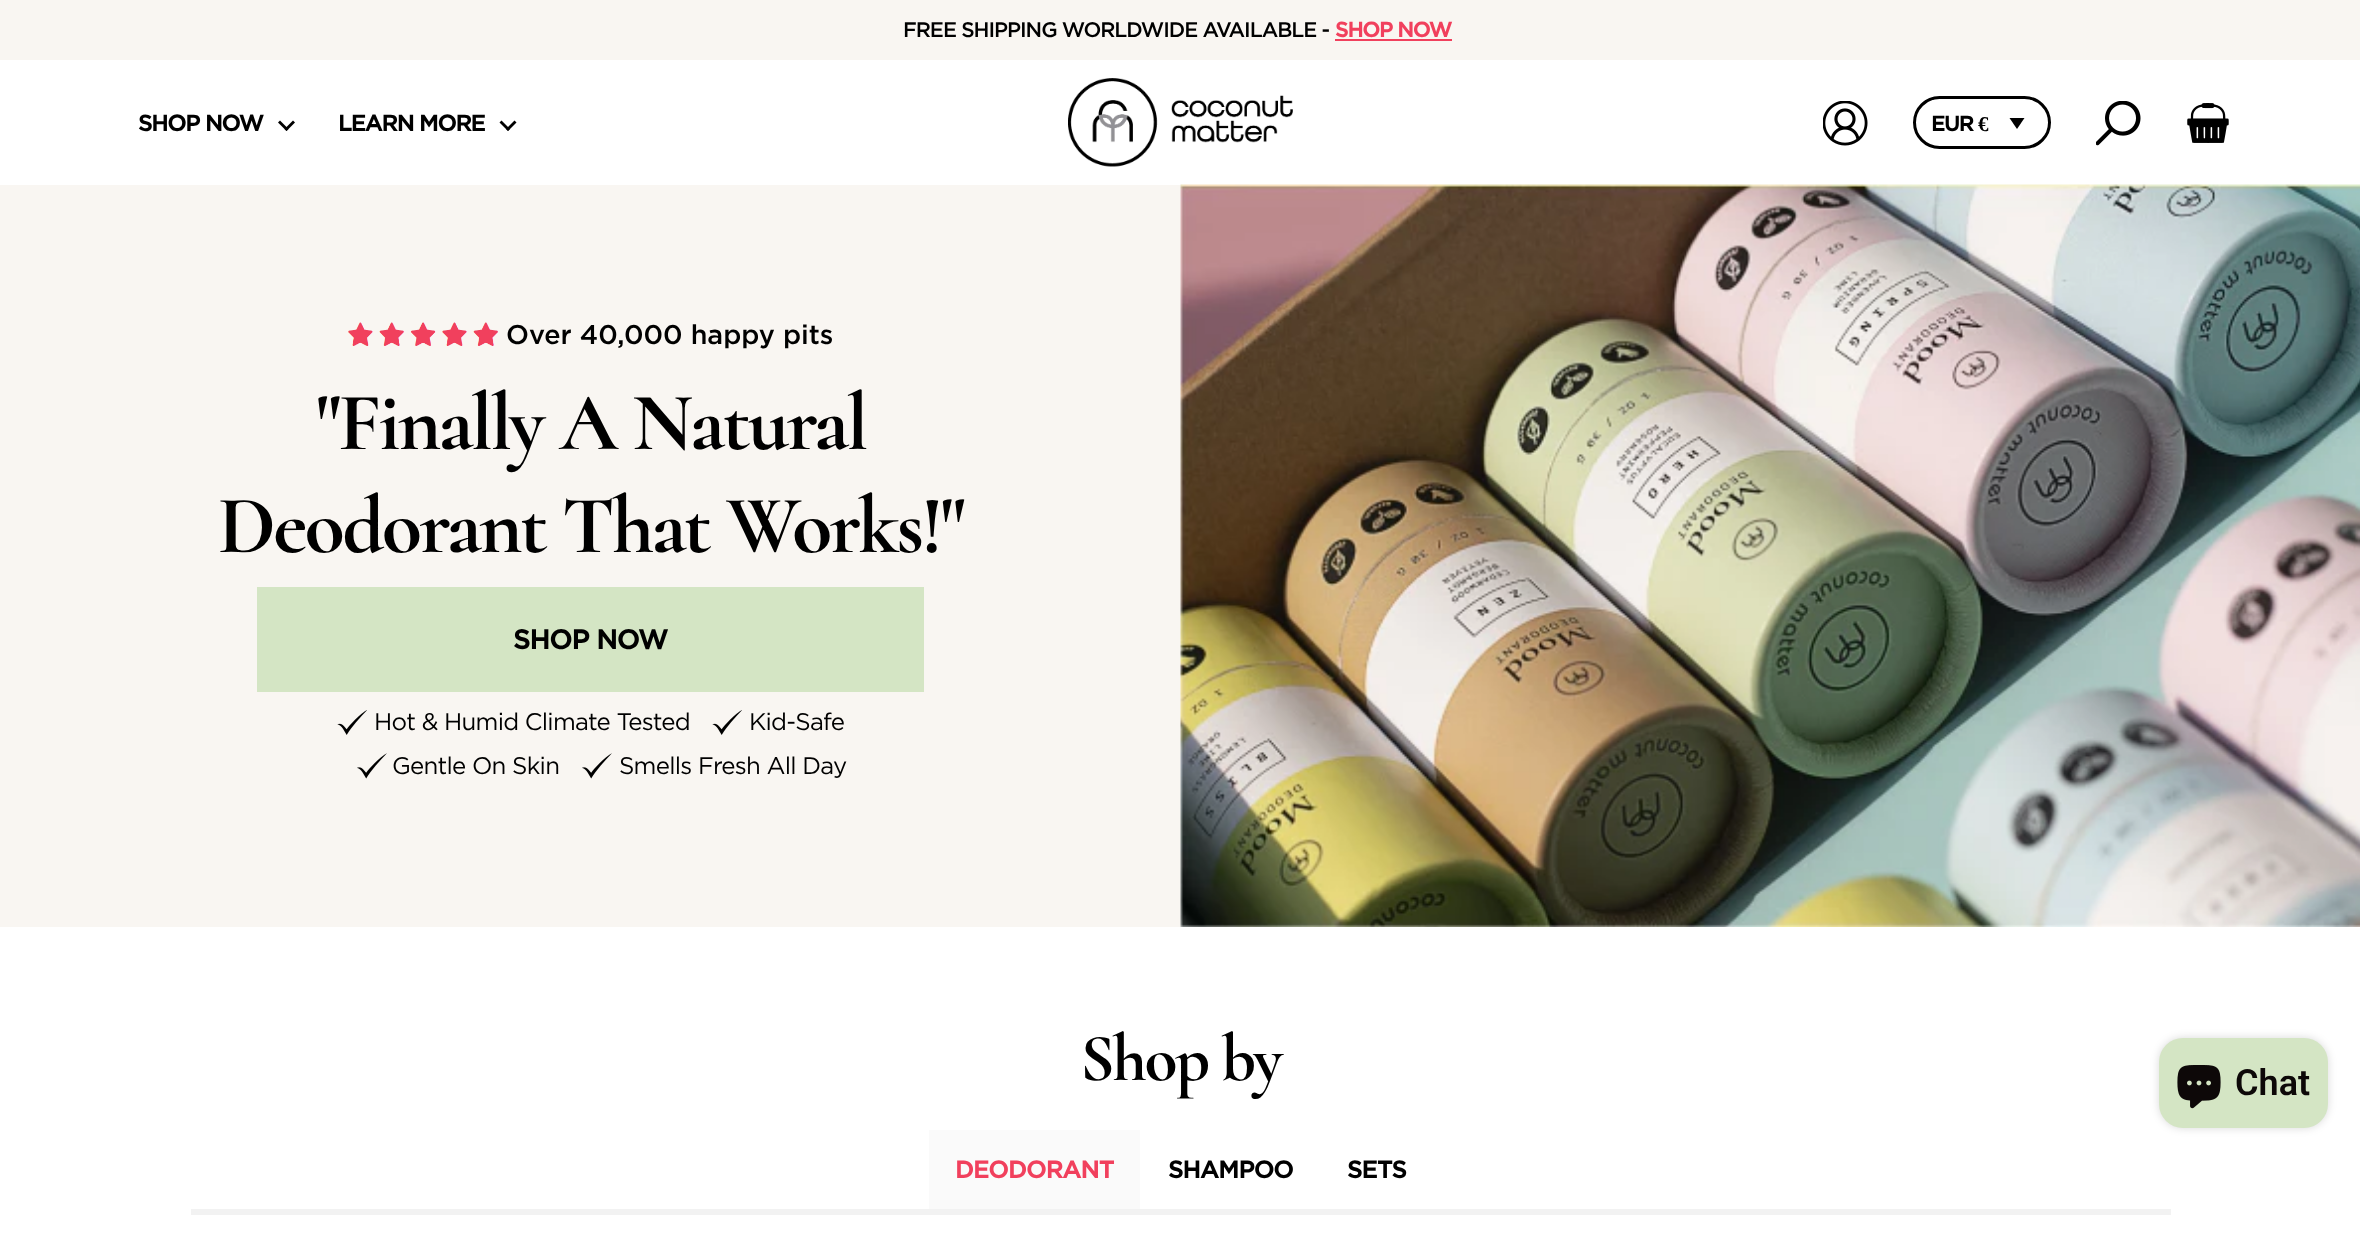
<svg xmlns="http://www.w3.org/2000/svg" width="2360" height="1255">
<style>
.a{font:500 21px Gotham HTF;letter-spacing:-1.05px;fill:#000}
.b{font:bold 21px Gotham HTF;letter-spacing:-1.05px;fill:#f1405d}
.c{font:bold 22.5px Gotham HTF;letter-spacing:-1.1px;fill:#000}
.d{font:bold 21px Gotham HTF;letter-spacing:-1.05px;fill:#000}
.e{font:bold 21px Liberation Serif;letter-spacing:-1.05px;fill:#000}
.f{font:500 27px Gotham HTF;fill:#000}
.g{font:bold 82.5px Cormorant;letter-spacing:-2.6px;fill:#000}
.h{font:bold 27px Gotham HTF;letter-spacing:-0.75px;fill:#000}
.i{font:24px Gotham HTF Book;letter-spacing:-0.75px;fill:#000}
.j{font:bold 67.5px Cormorant;letter-spacing:-2.25px;fill:#000}
.k{font:bold 24px Gotham HTF;letter-spacing:-0.75px;fill:#f1405d}
.l{font:bold 24px Gotham HTF;letter-spacing:-0.75px;fill:#000}
.m{font:600 36px Roboto;fill:#0d0808}
</style>
<rect width="100%" height="100%" fill="#fff"/>
<path fill="#f9f6f2" d="M0 0h2360v60H0z"/>
<path fill="#f1405d" d="M1335 39h117v2H1335z"/>
<path fill="#000" d="M286.5 131l-8.5-8.5l2-2l8.5 8.5z"/>
<path fill="#000" d="M286.5 131l-2-2l8.5-8.5l2 2z"/>
<path fill="#000" d="M508 131l-8.5-8.5l2-2l8.5 8.5z"/>
<path fill="#000" d="M508 131l-2-2l8.5-8.5l2 2z"/>
<image href="1.png" x="1068" y="78" width="225" height="89"/>
<image href="2.png" x="1823" y="101" width="45" height="45"/>
<rect fill="none" stroke="#000" stroke-width="3" x="1914.5" y="97.5" width="135" height="50" rx="25"/>
<path fill="#000" d="M2024.5 118l-7.5 11l-7.5-11z"/>
<image href="3.png" x="2096" y="101" width="45" height="45"/>
<image href="4.png" x="2187" y="103" width="42" height="40"/>
<path fill="#f9f6f2" d="M0 185h1181v742H0z"/>
<image href="5.png" x="348" y="322" width="150" height="24"/>
<path fill="#d4e5c4" d="M257 587h667v105H257z"/>
<image href="6.png" x="337" y="710" width="30" height="25"/>
<image href="6.png" x="712" y="710" width="30" height="25"/>
<image href="7.png" x="357" y="753" width="30" height="26"/>
<image href="7.png" x="582" y="753" width="30" height="26"/>
<image href="8.png" x="1180" y="184" width="1180" height="743"/>
<path fill="#fafafa" d="M929 1130h211v79H929z"/>
<path fill="#f2f2f2" d="M191 1209h1980v6H191z"/>
<rect fill="#00000026" filter="blur(4px)" x="2159" y="1038" width="169" height="90" rx="24"/>
<rect fill="#d4e5c4" x="2159" y="1038" width="169" height="90" rx="24"/>
<image href="9.png" x="2177" y="1065" width="44" height="44"/>
<text class="a" x="903" y="37">FREE SHIPPING WORLDWIDE AVAILABLE -</text>
<text class="b" x="1335" y="37">SHOP NOW</text>
<text class="c" x="138" y="131">SHOP NOW</text>
<text class="c" x="338" y="131">LEARN MORE</text>
<text class="d" x="1931" y="131">EUR</text>
<text class="e" x="1978" y="131">€</text>
<text class="f" x="506" y="344">Over 40,000 happy pits</text>
<text class="g" x="316" y="449">"Finally A Natural</text>
<text class="g" x="218" y="552">Deodorant That Works!"</text>
<text class="h" x="513" y="649">SHOP NOW</text>
<text class="i" x="374" y="730">Hot &amp; Humid Climate Tested</text>
<text class="i" x="749" y="730">Kid-Safe</text>
<text class="i" x="392" y="774">Gentle On Skin</text>
<text class="i" x="619" y="774">Smells Fresh All Day</text>
<text class="j" x="1080" y="1080">Shop by</text>
<text class="k" x="955" y="1178">DEODORANT</text>
<text class="l" x="1168" y="1178">SHAMPOO</text>
<text class="l" x="1347" y="1178">SETS</text>
<text class="m" x="2235" y="1095">Chat</text>
</svg>
